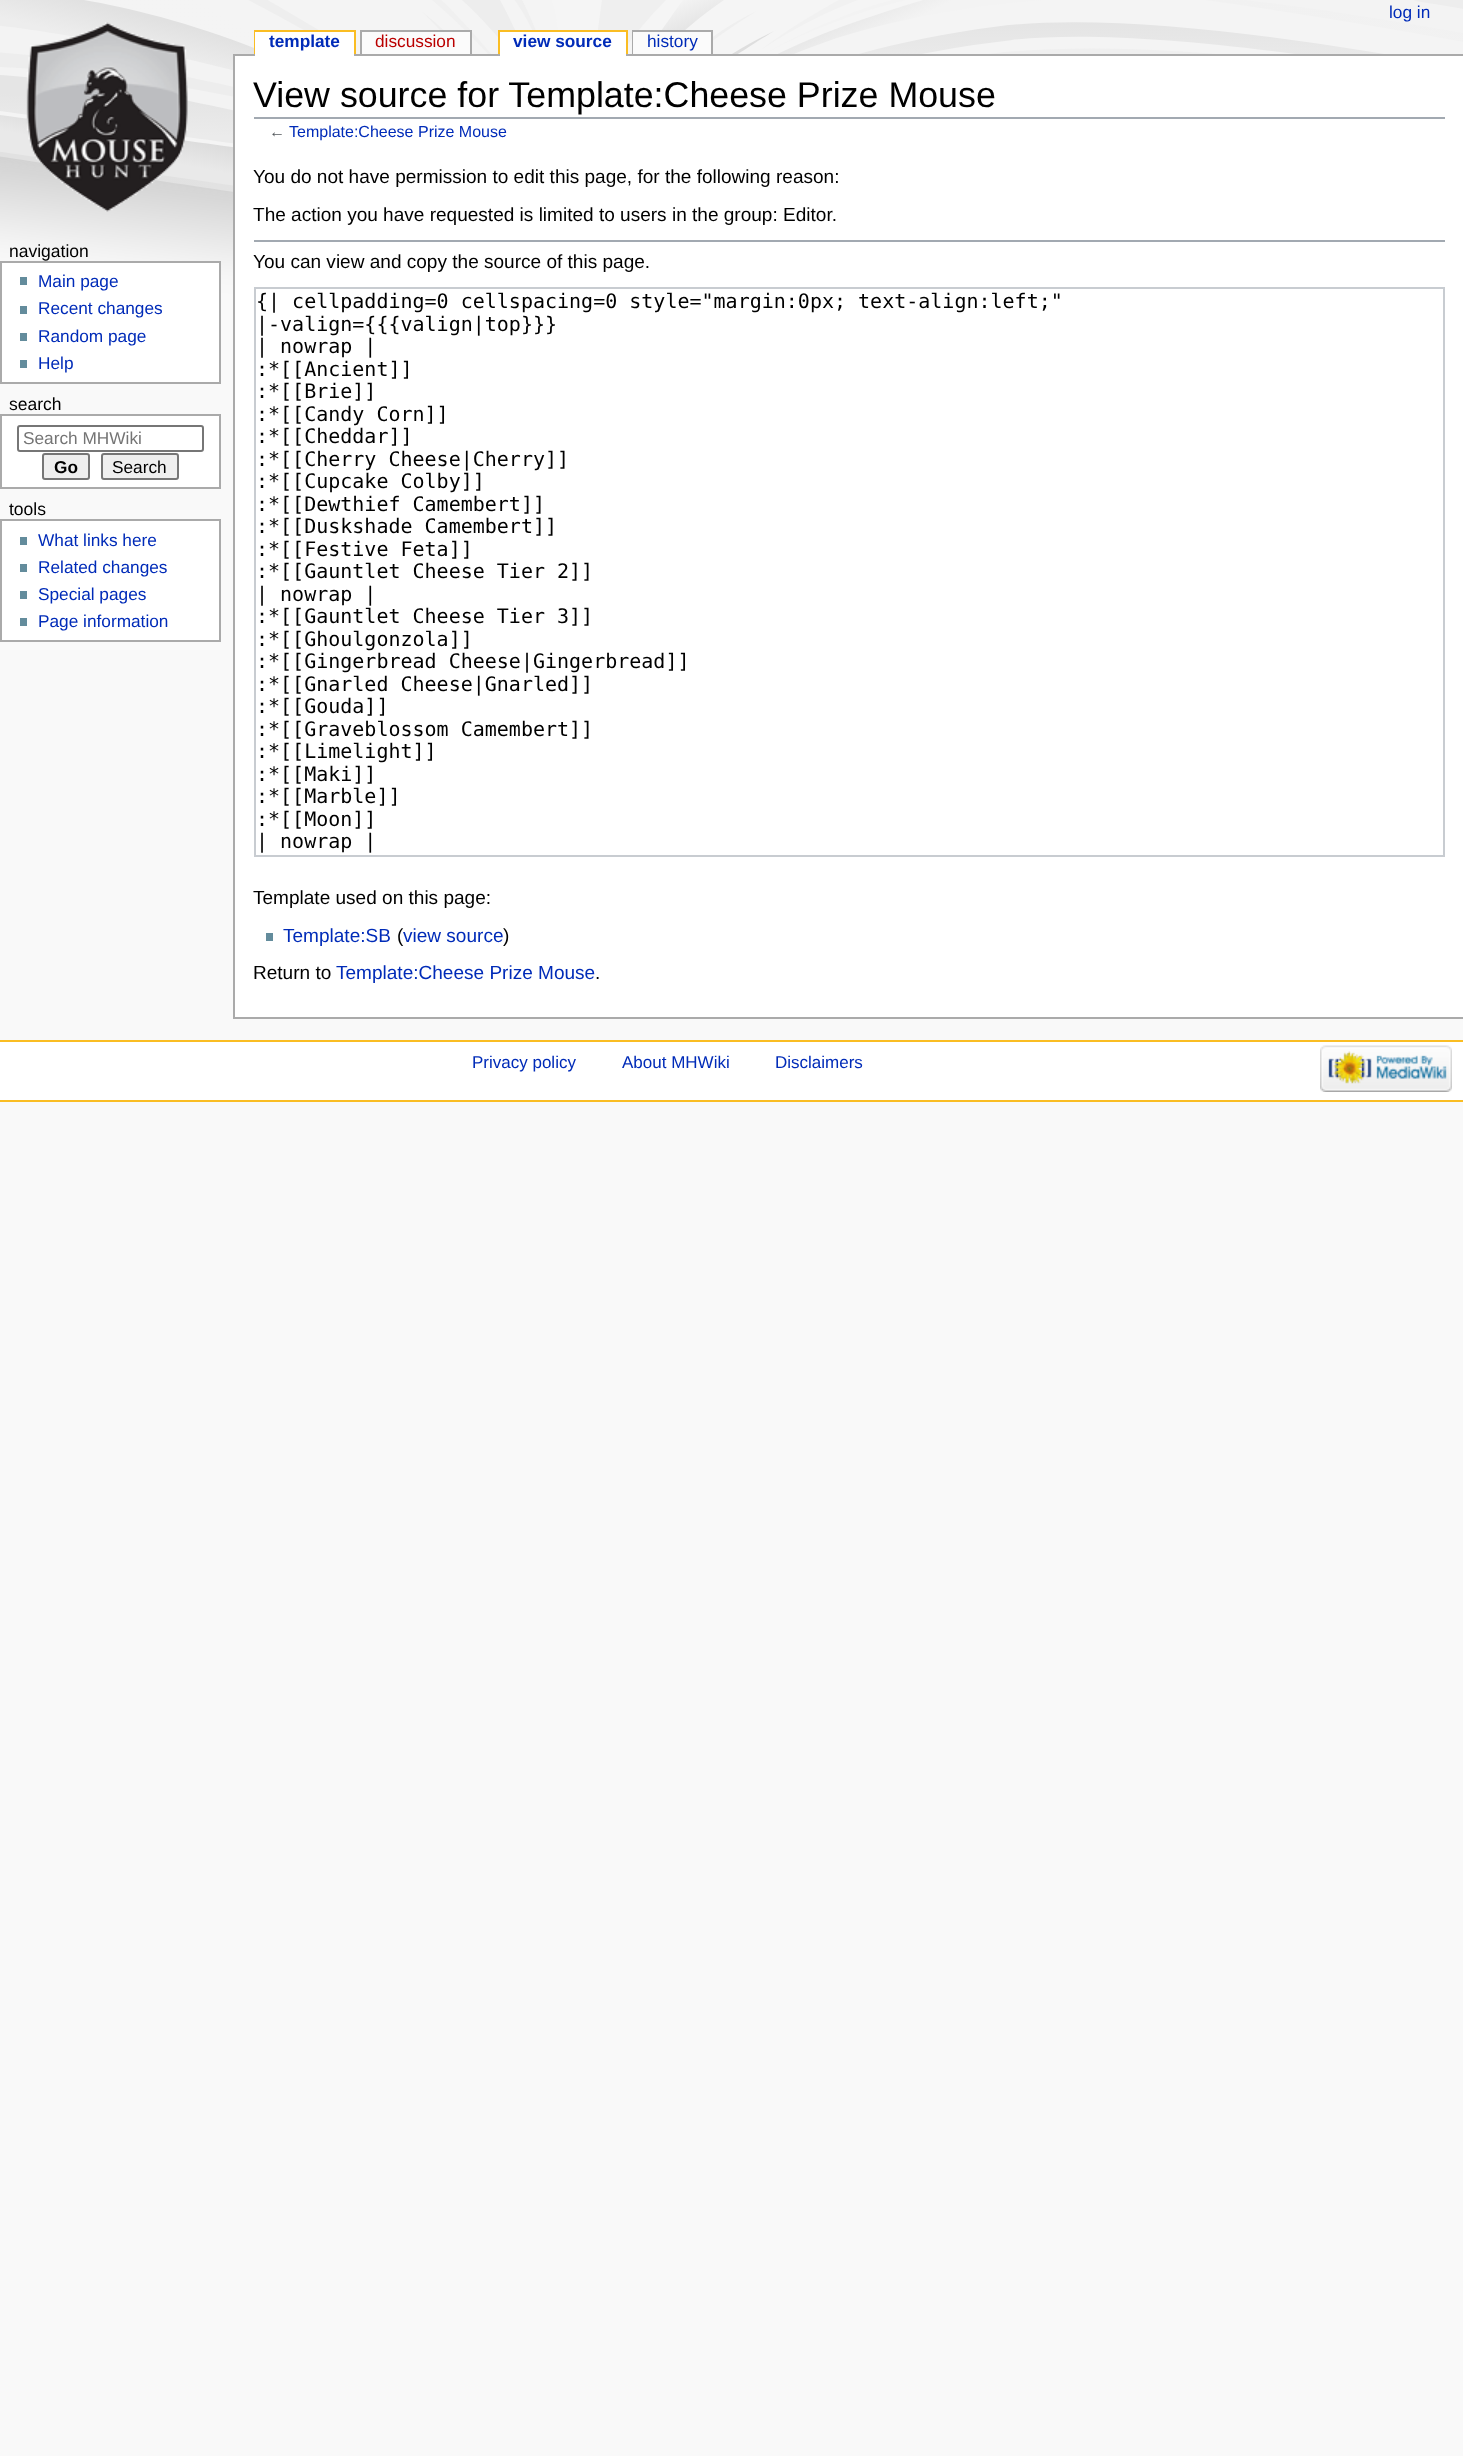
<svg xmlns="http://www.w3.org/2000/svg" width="1463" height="2456">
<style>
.a{font:17.25px Liberation Sans;fill:#002bb8}
.b{font:bold 17.25px Liberation Sans;fill:#002bb8}
.c{font:17.25px Liberation Sans;fill:#ba0000}
.d{font:17.5px Liberation Sans;fill:#000}
.e{font:17.25px Liberation Sans;fill:#757575}
.f{font:bold 17.25px Liberation Sans;fill:#000}
.g{font:17.25px Liberation Sans;fill:#000}
.h{font:35.8px Liberation Sans;fill:#000}
.i{font:16px Liberation Sans;fill:#54595d}
.j{font:16px Liberation Sans;fill:#002bb8}
.k{font:19.05px Liberation Sans;fill:#000}
.l{font:20px DejaVu Sans Mono;fill:#000}
.m{font:19.05px Liberation Sans;fill:#002bb8}
.n{font:17px Liberation Sans;fill:#002bb8}
</style>
<rect width="100%" height="100%" fill="#f9f9f9"/>
<image href="1.png" x="0" y="0" width="1463" height="315"/>
<image href="2.png" x="26" y="22" width="162" height="190"/>
<path fill="#fabd23" d="M254 30h102v2H254z"/>
<path fill="#fabd23" d="M354 30h2v24H354z"/>
<path fill="#fabd23" d="M254 30h2v24H254z"/>
<path fill="#aaa" d="M233 54h1230v2H233z"/>
<path fill="#fff" d="M255 32h99v24H255z"/>
<path fill="#aaa" d="M360 30h111v2H360z"/>
<path fill="#aaa" d="M470 30h2v24H470z"/>
<path fill="#aaa" d="M360 30h2v24H360z"/>
<path fill="#fbfbfb" d="M362 32h108v22H362z"/>
<path fill="#fabd23" d="M498 30h129v2H498z"/>
<path fill="#fabd23" d="M626 30h2v24H626z"/>
<path fill="#fabd23" d="M498 30h2v24H498z"/>
<path fill="#fff" d="M500 32h126v24H500z"/>
<path fill="#aaa" d="M632 30h81v2H632z"/>
<path fill="#aaa" d="M711 30h2v24H711z"/>
<path fill="#aaa" d="M632 30h2v24H632z"/>
<path fill="#fbfbfb" d="M633 32h78v22H633z"/>
<path fill="#fff" stroke="#aaa" stroke-width="2" d="M1 262h219v121H1z"/>
<path fill="#638c9c" d="M20 277h7v8H20z"/>
<path fill="#638c9c" d="M20 306h7v8H20z"/>
<path fill="#638c9c" d="M20 333h7v8H20z"/>
<path fill="#638c9c" d="M20 360h7v8H20z"/>
<path fill="#fff" stroke="#aaa" stroke-width="2" d="M1 415h219v73H1z"/>
<rect fill="none" stroke="#767676" stroke-width="2" x="18" y="426" width="185" height="25" rx="2"/>
<rect fill="#efefef" stroke="#767676" stroke-width="2" x="43" y="454" width="46" height="25" rx="2"/>
<rect fill="#efefef" stroke="#767676" stroke-width="2" x="102" y="454" width="76" height="25" rx="2"/>
<path fill="#fff" stroke="#aaa" stroke-width="2" d="M1 520h219v121H1z"/>
<path fill="#638c9c" d="M20 537h7v8H20z"/>
<path fill="#638c9c" d="M20 564h7v8H20z"/>
<path fill="#638c9c" d="M20 591h7v8H20z"/>
<path fill="#638c9c" d="M20 618h7v8H20z"/>
<path fill="#fff" d="M235 56h1228v961H235z"/>
<path fill="#aaa" d="M233 1017h1230v2H233z"/>
<path fill="#aaa" d="M233 54h2v965H233z"/>
<path fill="#a2a9b1" d="M254 117h1191v2H254z"/>
<path fill="#a2a9b1" d="M254 240h1191v2H254z"/>
<path fill="none" stroke="#c8ccd1" stroke-width="2" d="M255 288h1189v568H255z"/>
<path fill="#638c9c" d="M266 933h7v8H266z"/>
<path fill="#fff" d="M0 1042h1463v58H0z"/>
<path fill="#fabd23" d="M0 1040h1463v2H0z"/>
<path fill="#fabd23" d="M0 1100h1463v2H0z"/>
<image href="3.png" x="1320" y="1045" width="132" height="47"/>
<text class="a" x="1389" y="18">log in</text>
<text class="b" x="269" y="47">template</text>
<text class="c" x="375" y="47">discussion</text>
<text class="b" x="513" y="47">view source</text>
<text class="a" x="647" y="47">history</text>
<text class="d" x="9" y="257">navigation</text>
<text class="a" x="38" y="287">Main page</text>
<text class="a" x="38" y="314">Recent changes</text>
<text class="a" x="38" y="342">Random page</text>
<text class="a" x="38" y="369">Help</text>
<text class="d" x="9" y="410">search</text>
<text class="e" x="23" y="444">Search MHWiki</text>
<text class="f" x="54" y="473">Go</text>
<text class="g" x="112" y="473">Search</text>
<text class="d" x="9" y="515">tools</text>
<text class="a" x="38" y="546">What links here</text>
<text class="a" x="38" y="573">Related changes</text>
<text class="a" x="38" y="600">Special pages</text>
<text class="a" x="38" y="627">Page information</text>
<text class="h" x="253" y="107">View source for Template:Cheese Prize Mouse</text>
<text class="i" x="269" y="137">←</text>
<text class="j" x="289" y="137">Template:Cheese Prize Mouse</text>
<text class="k" x="253" y="183">You do not have permission to edit this page, for the following reason:</text>
<text class="k" x="253" y="221">The action you have requested is limited to users in the group: Editor.</text>
<text class="k" x="253" y="268">You can view and copy the source of this page.</text>
<text class="l" x="256" y="308">{| cellpadding=0 cellspacing=0 style="margin:0px; text-align:left;"</text>
<text class="l" x="256" y="331">|-valign={{{valign|top}}}</text>
<text class="l" x="256" y="353">| nowrap |</text>
<text class="l" x="256" y="376">:*[[Ancient]]</text>
<text class="l" x="256" y="398">:*[[Brie]]</text>
<text class="l" x="256" y="421">:*[[Candy Corn]]</text>
<text class="l" x="256" y="443">:*[[Cheddar]]</text>
<text class="l" x="256" y="466">:*[[Cherry Cheese|Cherry]]</text>
<text class="l" x="256" y="488">:*[[Cupcake Colby]]</text>
<text class="l" x="256" y="511">:*[[Dewthief Camembert]]</text>
<text class="l" x="256" y="533">:*[[Duskshade Camembert]]</text>
<text class="l" x="256" y="556">:*[[Festive Feta]]</text>
<text class="l" x="256" y="578">:*[[Gauntlet Cheese Tier 2]]</text>
<text class="l" x="256" y="601">| nowrap |</text>
<text class="l" x="256" y="623">:*[[Gauntlet Cheese Tier 3]]</text>
<text class="l" x="256" y="646">:*[[Ghoulgonzola]]</text>
<text class="l" x="256" y="668">:*[[Gingerbread Cheese|Gingerbread]]</text>
<text class="l" x="256" y="691">:*[[Gnarled Cheese|Gnarled]]</text>
<text class="l" x="256" y="713">:*[[Gouda]]</text>
<text class="l" x="256" y="736">:*[[Graveblossom Camembert]]</text>
<text class="l" x="256" y="758">:*[[Limelight]]</text>
<text class="l" x="256" y="781">:*[[Maki]]</text>
<text class="l" x="256" y="803">:*[[Marble]]</text>
<text class="l" x="256" y="826">:*[[Moon]]</text>
<text class="l" x="256" y="848">| nowrap |</text>
<text class="k" x="253" y="904">Template used on this page:</text>
<text class="m" x="283" y="942">Template:SB</text>
<text class="k" x="397" y="942">(</text>
<text class="m" x="403" y="942">view source</text>
<text class="k" x="503" y="942">)</text>
<text class="k" x="253" y="979">Return to</text>
<text class="m" x="336" y="979">Template:Cheese Prize Mouse</text>
<text class="k" x="595" y="979">.</text>
<text class="n" x="472" y="1068">Privacy policy</text>
<text class="n" x="622" y="1068">About MHWiki</text>
<text class="n" x="775" y="1068">Disclaimers</text>
</svg>
